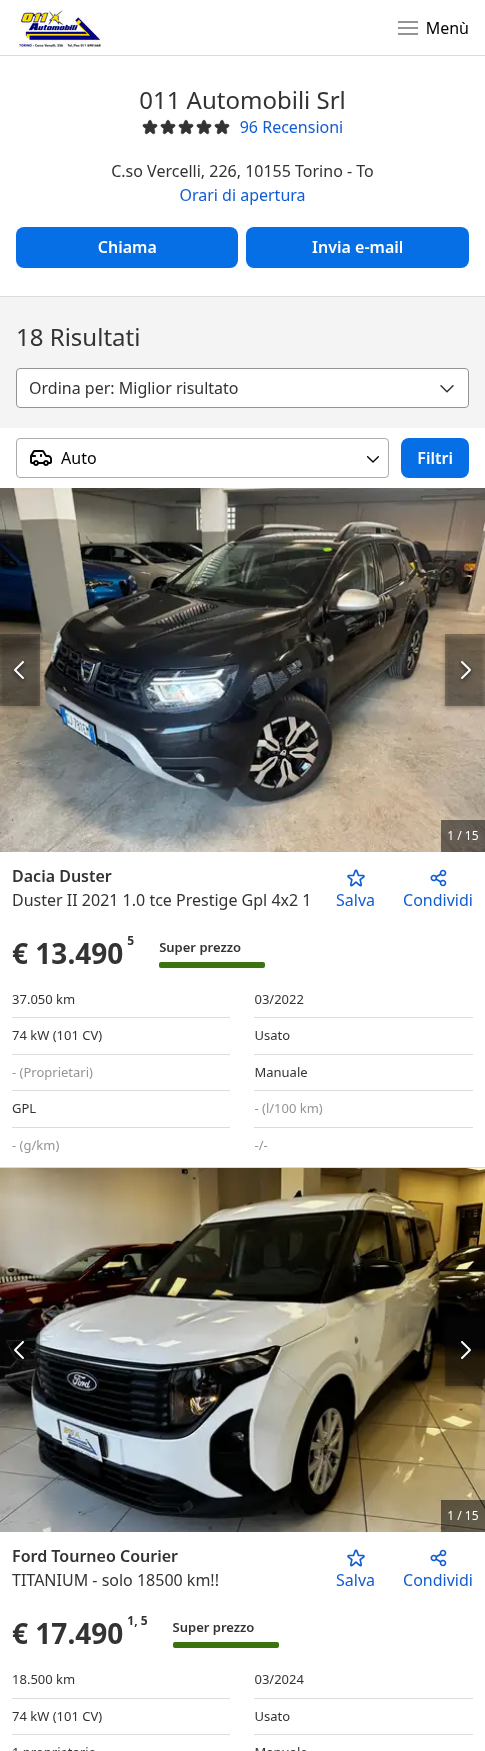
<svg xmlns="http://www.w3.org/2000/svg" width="485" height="1751">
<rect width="100%" height="100%" fill="#fff"/>
<image href="1.png" x="0" y="9" width="485" height="1742"/>
</svg>
